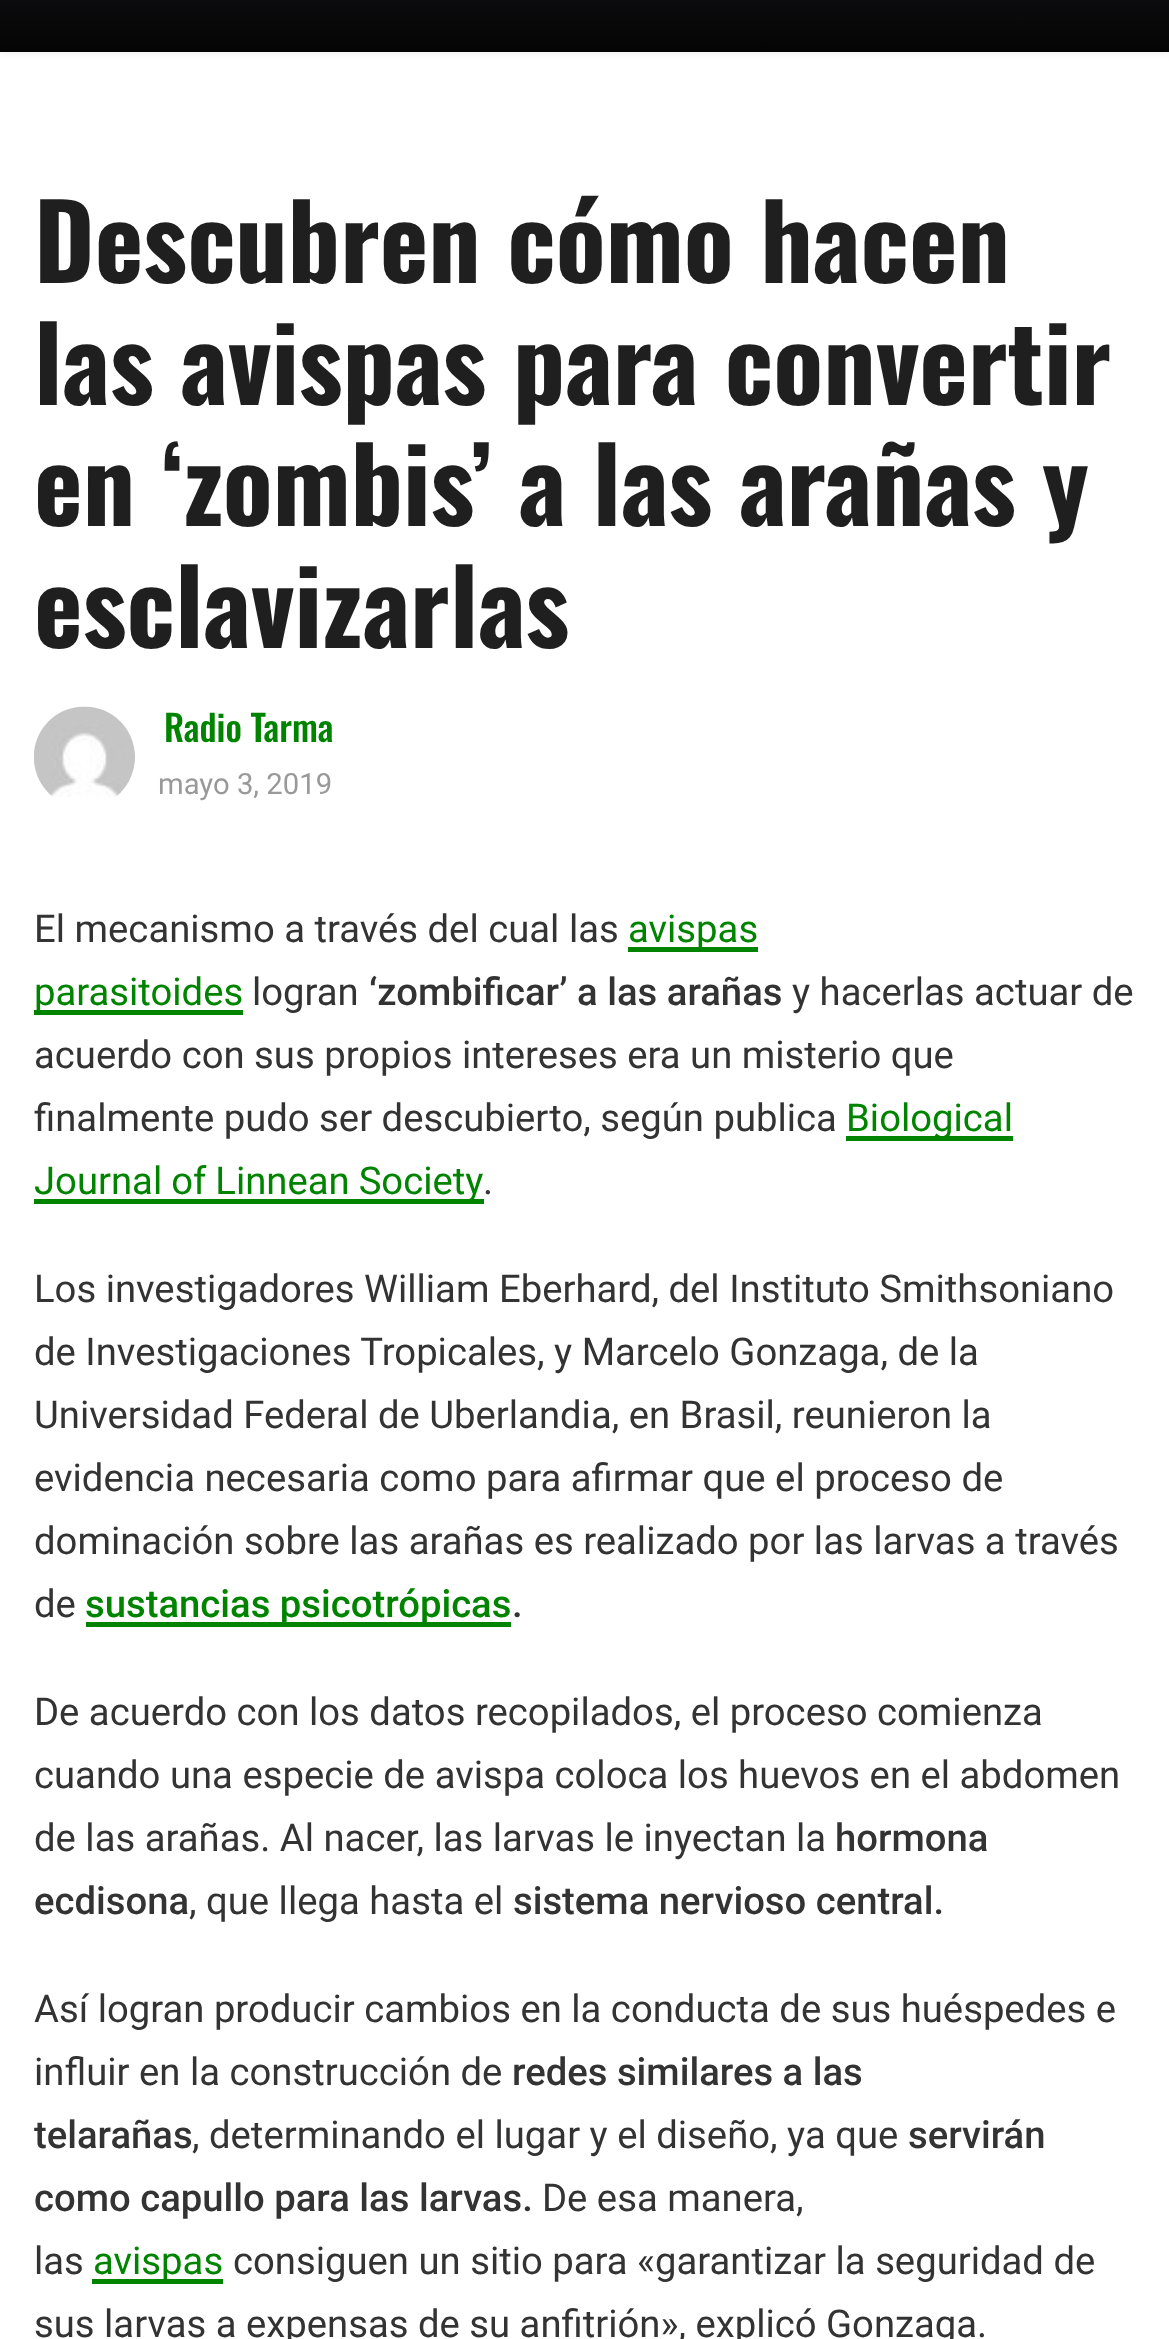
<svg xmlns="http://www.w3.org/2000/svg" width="1169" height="2339">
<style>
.a{font:bold 103.5px Oswald;fill:#201f1f}
.b{font:500 36px Oswald;fill:#008400}
.c{font:29.25px Roboto;fill:#999}
.d{font:38.25px Roboto;fill:#333}
.e{font:38.25px Roboto;fill:#008400}
.f{font:500 38.25px Roboto;fill:#333}
.g{font:500 38.25px Roboto;fill:#008400}
</style>
<defs>
<linearGradient id="g1" gradientUnits="userSpaceOnUse" x1="585" y1="0" x2="585" y2="52"><stop offset="0" stop-color="#0c0c0e"/><stop offset="1" stop-color="#040404"/><stop offset="1" stop-color="#0b0b0d"/></linearGradient>
</defs>
<rect width="100%" height="100%" fill="#fff"/>
<path fill="#0000000f" filter="blur(3.5px)" d="M0 2h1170v52H0z"/>
<path fill="url(#g1)" d="M0 0h1169v52H0z"/>
<image href="1.png" x="34" y="706" width="101" height="91"/>
<path fill="#008400" d="M628 947h130v5H628z"/>
<path fill="#008400" d="M34 1010h209v5H34z"/>
<path fill="#008400" d="M846 1136h167v5H846z"/>
<path fill="#008400" d="M34 1199h450v5H34z"/>
<path fill="#008400" d="M86 1622h425v5H86z"/>
<path fill="#008400" d="M92 2279h131v5H92z"/>
<text class="a" x="34" y="283">Descubren cómo hacen</text>
<text class="a" x="34" y="405">las avispas para convertir</text>
<text class="a" x="34" y="526">en ‘zombis’ a las arañas y</text>
<text class="a" x="34" y="648">esclavizarlas</text>
<text class="b" x="164" y="742">Radio Tarma</text>
<text class="c" x="158" y="794">mayo 3, 2019</text>
<text class="d" x="34" y="942">El mecanismo a través del cual las</text>
<text class="e" x="628" y="942">avispas</text>
<text class="e" x="34" y="1005">parasitoides</text>
<text class="d" x="252" y="1005">logran</text>
<text class="f" x="369" y="1005">‘zombificar’ a las arañas</text>
<text class="d" x="792" y="1005">y hacerlas actuar de</text>
<text class="d" x="34" y="1068">acuerdo con sus propios intereses era un misterio que</text>
<text class="d" x="34" y="1131">finalmente pudo ser descubierto, según publica</text>
<text class="e" x="846" y="1131">Biological</text>
<text class="e" x="34" y="1194" word-spacing="-0.5">Journal of Linnean Society</text>
<text class="d" x="483" y="1194">.</text>
<text class="d" x="34" y="1302">Los investigadores William Eberhard, del Instituto Smithsoniano</text>
<text class="d" x="34" y="1365">de Investigaciones Tropicales, y Marcelo Gonzaga, de la</text>
<text class="d" x="34" y="1428">Universidad Federal de Uberlandia, en Brasil, reunieron la</text>
<text class="d" x="34" y="1491">evidencia necesaria como para afirmar que el proceso de</text>
<text class="d" x="34" y="1554">dominación sobre las arañas es realizado por las larvas a través</text>
<text class="d" x="34" y="1617">de</text>
<text class="g" x="85" y="1617">sustancias psicotrópicas</text>
<text class="f" x="512" y="1617">.</text>
<text class="d" x="34" y="1725">De acuerdo con los datos recopilados, el proceso comienza</text>
<text class="d" x="34" y="1788">cuando una especie de avispa coloca los huevos en el abdomen</text>
<text class="d" x="34" y="1851">de las arañas. Al nacer, las larvas le inyectan la</text>
<text class="f" x="835" y="1851">hormona</text>
<text class="f" x="34" y="1914">ecdisona</text>
<text class="d" x="189" y="1914">, que llega hasta el</text>
<text class="f" x="513" y="1914">sistema nervioso central.</text>
<text class="d" x="34" y="2022">Así logran producir cambios en la conducta de sus huéspedes e</text>
<text class="d" x="34" y="2085">influir en la construcción de</text>
<text class="f" x="512" y="2085">redes similares a las</text>
<text class="f" x="34" y="2148">telarañas</text>
<text class="d" x="192" y="2148">, determinando el lugar y el diseño, ya que</text>
<text class="f" x="908" y="2148">servirán</text>
<text class="f" x="34" y="2211">como capullo para las larvas.</text>
<text class="d" x="542" y="2211">De esa manera,</text>
<text class="d" x="34" y="2274">las</text>
<text class="e" x="93" y="2274">avispas</text>
<text class="d" x="233" y="2274">consiguen un sitio para «garantizar la seguridad de</text>
<text class="d" x="34" y="2337">sus larvas a expensas de su anfitrión», explicó Gonzaga.</text>
</svg>
